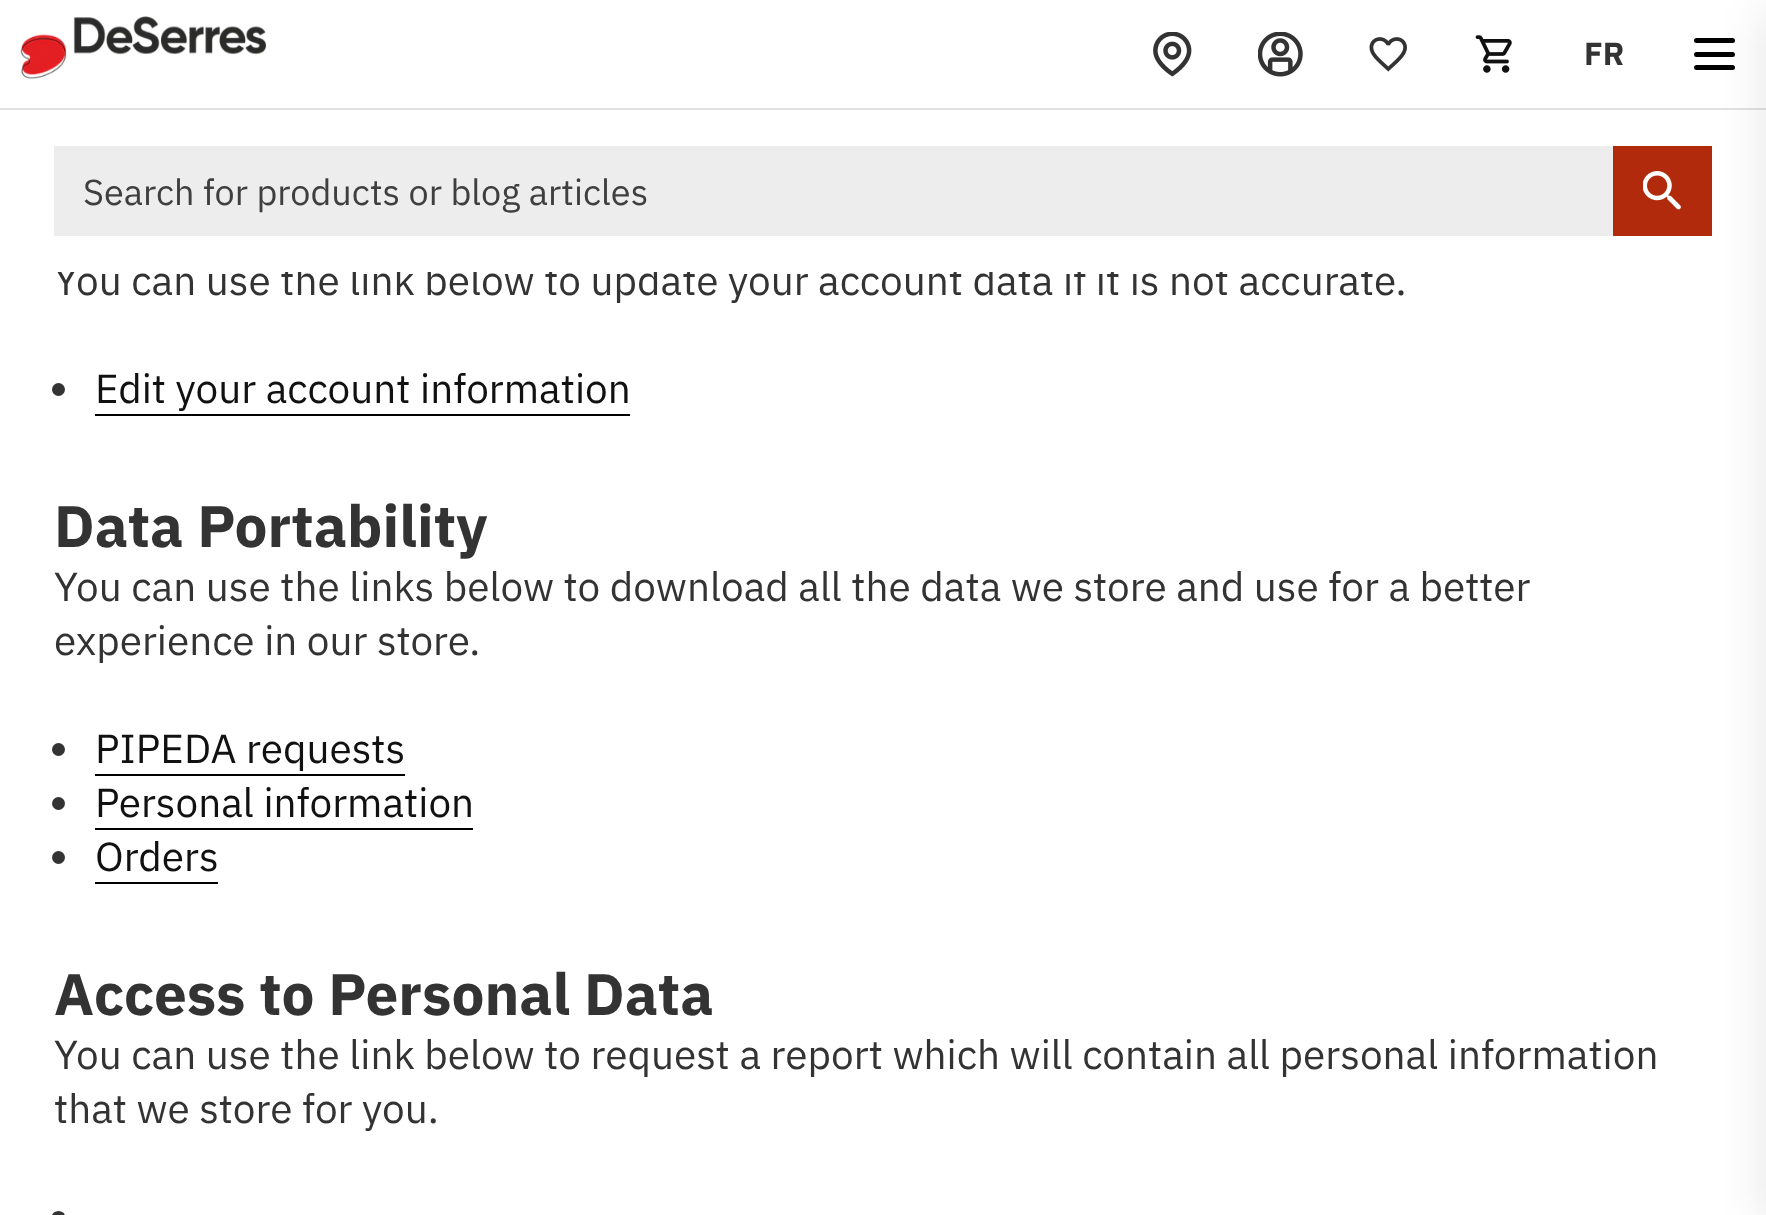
<svg xmlns="http://www.w3.org/2000/svg" width="1766" height="1215">
<style>
.a{font:bold 32px IBM Plex Sans;fill:#333}
.b{font:36px IBM Plex Sans;fill:#3f3f3f}
.c{font:40.5px IBM Plex Sans;fill:#333}
.d{font:40.5px IBM Plex Sans;fill:#111}
.e{font:bold 58.5px IBM Plex Sans;fill:#333}
</style>
<rect width="100%" height="100%" fill="#fff"/>
<path fill="#e0e0e0" d="M0 108h1766v2H0z"/>
<image href="1.png" x="20" y="16" width="247" height="63"/>
<image href="2.png" x="1153" y="32" width="39" height="45"/>
<image href="3.png" x="1258" y="32" width="45" height="45"/>
<image href="4.png" x="1369" y="37" width="38" height="35"/>
<image href="5.png" x="1475" y="35" width="37" height="38"/>
<rect fill="#000" x="1694" y="65" width="41" height="5" rx="2.5"/>
<rect fill="#000" x="1694" y="38" width="41" height="5" rx="2.5"/>
<rect fill="#000" x="1694" y="52" width="41" height="5" rx="2.5"/>
<path fill="#ededed" d="M54 146h1559v90H54z"/>
<path fill="#b12a0b" d="M1613 146h99v90H1613z"/>
<image href="6.png" x="1643" y="171" width="38" height="39"/>
<path fill="#0000001a" filter="blur(22.5px)" d="M1766 9h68v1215H1766z"/>
<circle fill="#333" cx="58.5" cy="389.5" r="6.5"/>
<path fill="#000" d="M95 414h535v2H95z"/>
<circle fill="#333" cx="58.5" cy="749.5" r="6.5"/>
<path fill="#000" d="M95 774h310v2H95z"/>
<circle fill="#333" cx="58.5" cy="803.5" r="6.5"/>
<path fill="#000" d="M95 828h378v2H95z"/>
<circle fill="#333" cx="58.5" cy="857.5" r="6.5"/>
<path fill="#000" d="M95 882h123v2H95z"/>
<rect fill="#333" x="52" y="1211" width="13" height="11" rx="6.5"/>
<text class="a" x="1584" y="65">FR</text>
<text class="b" x="83" y="205">Search for products or blog articles</text>
<text class="c" x="54" y="295">You can use the link below to update your account data if it is not accurate.</text>
<path fill="#fff" d="M54 265h1314v7H54z"/>
<text class="d" x="95" y="403">Edit your account information</text>
<text class="e" x="54" y="547">Data Portability</text>
<text class="c" x="54" y="601">You can use the links below to download all the data we store and use for a better</text>
<text class="c" x="54" y="655">experience in our store.</text>
<text class="d" x="95" y="763">PIPEDA requests</text>
<text class="d" x="95" y="817">Personal information</text>
<text class="d" x="95" y="871">Orders</text>
<text class="e" x="54" y="1015">Access to Personal Data</text>
<text class="c" x="54" y="1069">You can use the link below to request a report which will contain all personal information</text>
<text class="c" x="54" y="1123">that we store for you.</text>
</svg>
